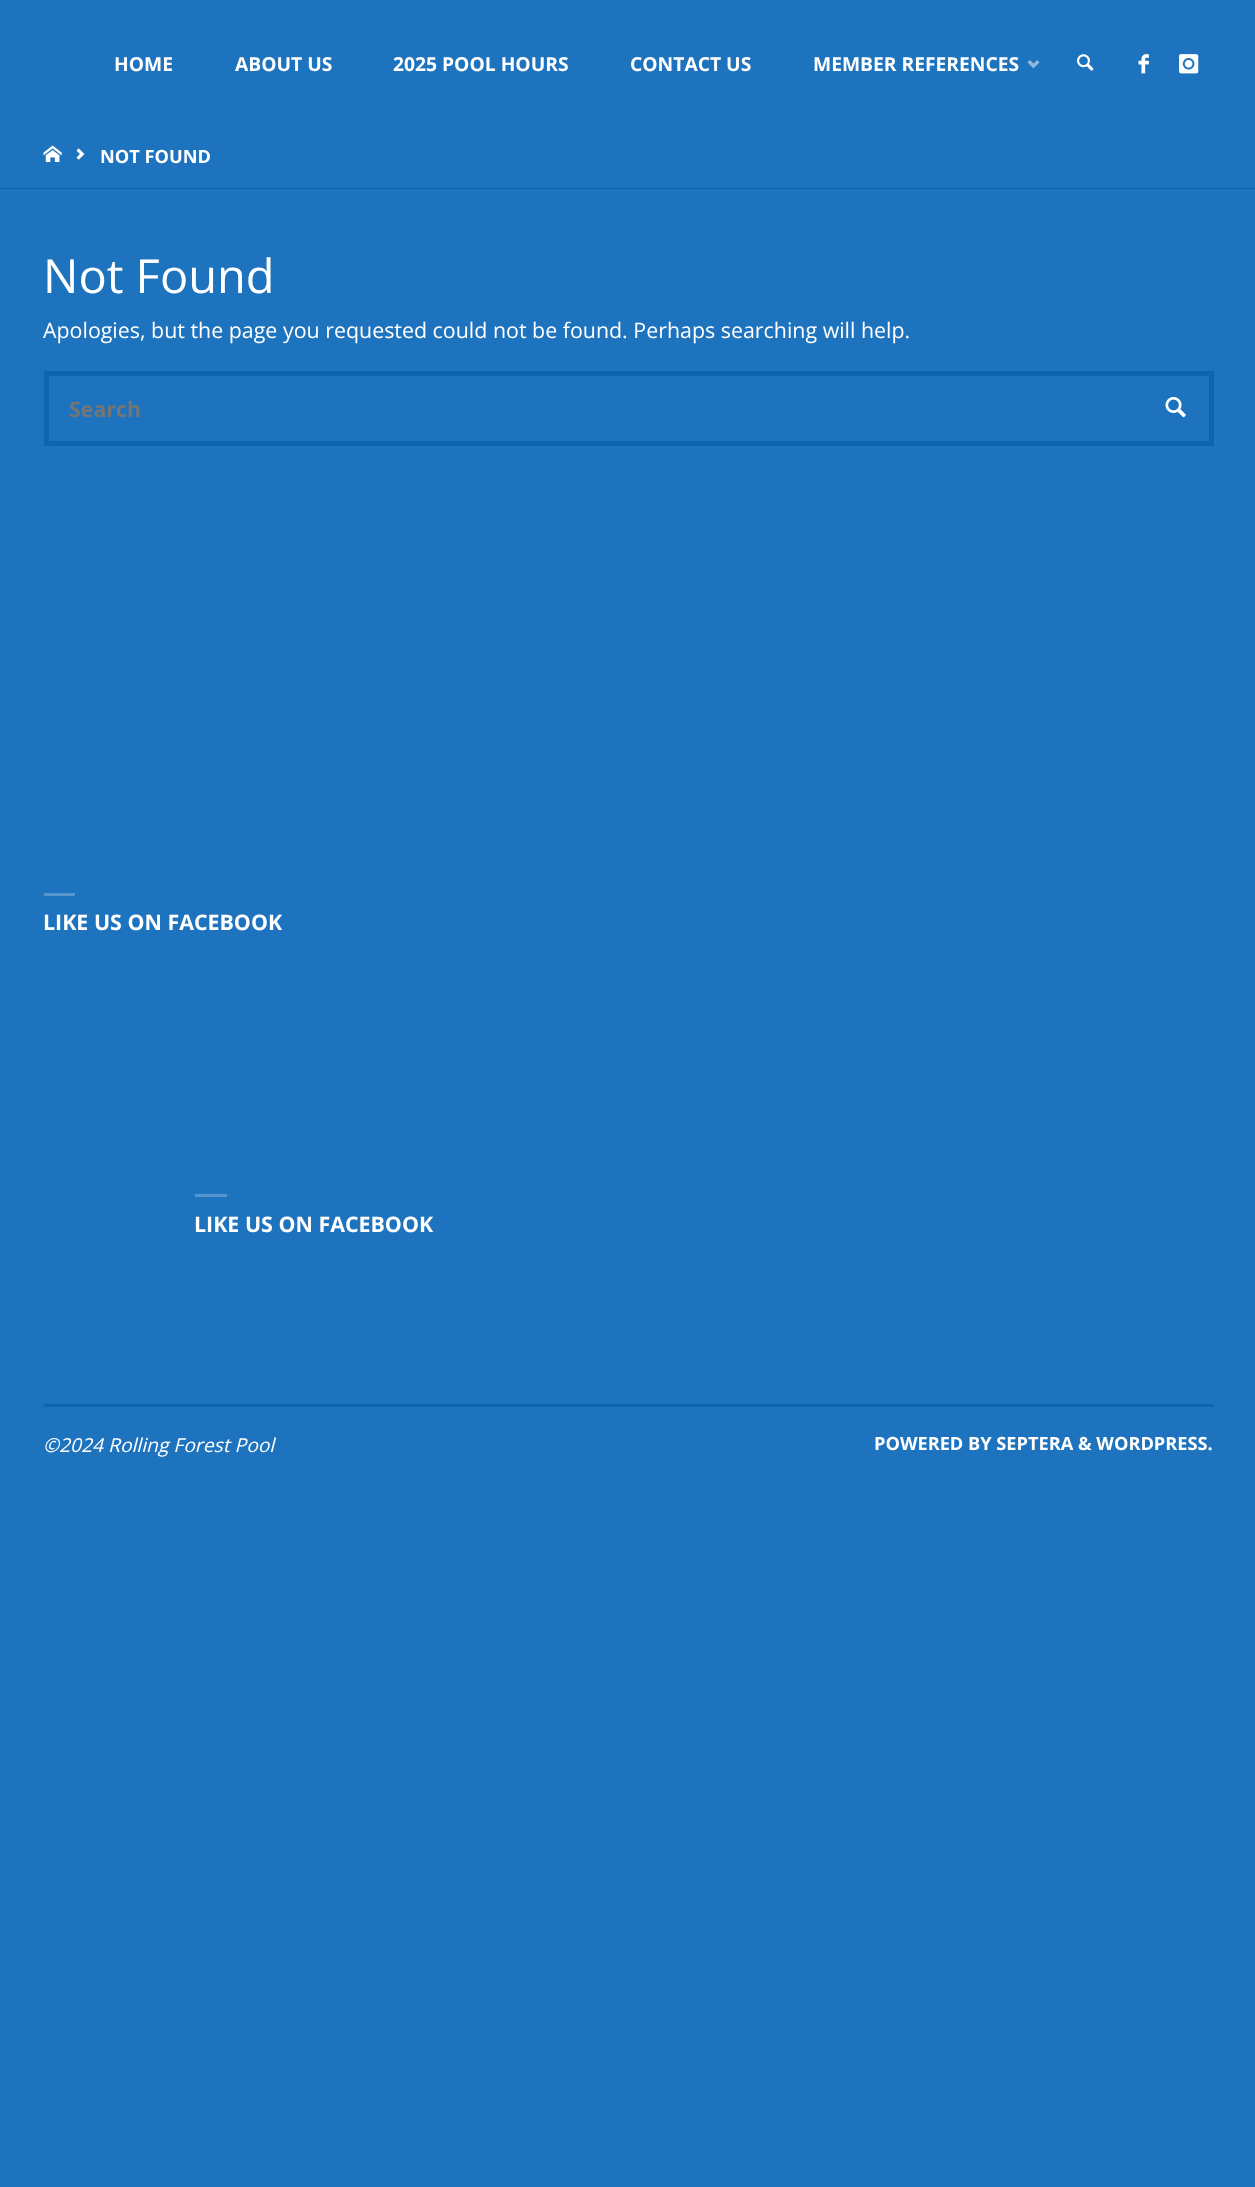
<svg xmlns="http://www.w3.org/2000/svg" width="1255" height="2187">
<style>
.a{font:bold 19.25px Open Sans;fill:#fff}
.b{font:bold 18.2px Open Sans;fill:#fff}
.c{font:47px Open Sans;fill:#fff}
.d{font:21.4px Open Sans;fill:#fff}
.e{font:bold 21.4px Open Sans;fill:#757575}
.f{font:bold 21.4px Open Sans;fill:#fff}
.g{font:italic 19.25px Open Sans;fill:#fff}
</style>
<rect width="100%" height="100%" fill="#1e73be"/>
<image href="1.png" x="1027" y="60" width="13" height="9"/>
<image href="2.png" x="1077" y="54" width="17" height="17"/>
<image href="3.png" x="1138" y="54" width="11" height="20"/>
<image href="4.png" x="1179" y="54" width="20" height="20"/>
<path fill="#0d62ad" d="M0 188h1255v1H0z"/>
<image href="5.png" x="43" y="145" width="19" height="17"/>
<image href="6.png" x="76" y="148" width="9" height="12"/>
<path fill="none" stroke="#0f64af" stroke-width="5" d="M46.5 373.5h1165v70H46.5z"/>
<image href="7.png" x="1165" y="397" width="21" height="21"/>
<path fill="#5696ce" d="M44 893h31v3H44z"/>
<path fill="#5696ce" d="M195 1194h32v3H195z"/>
<path fill="#0f64af" d="M44 1404h1170v3H44z"/>
<text class="a" x="114" y="71">HOME</text>
<text class="a" x="235" y="71">ABOUT US</text>
<text class="a" x="393" y="71">2025 POOL HOURS</text>
<text class="a" x="630" y="71">CONTACT US</text>
<text class="a" x="813" y="71">MEMBER REFERENCES</text>
<text class="b" x="100" y="163">NOT FOUND</text>
<text class="c" x="43" y="293">Not Found</text>
<text class="d" x="43" y="338">Apologies, but the page you requested could not be found. Perhaps searching will help.</text>
<text class="e" x="69" y="417">Search</text>
<text class="f" x="43" y="930">LIKE US ON FACEBOOK</text>
<text class="f" x="194" y="1232">LIKE US ON FACEBOOK</text>
<text class="g" x="43" y="1452">©2024 Rolling Forest Pool</text>
<text class="b" x="874" y="1450">POWERED BY SEPTERA &amp; WORDPRESS.</text>
</svg>
